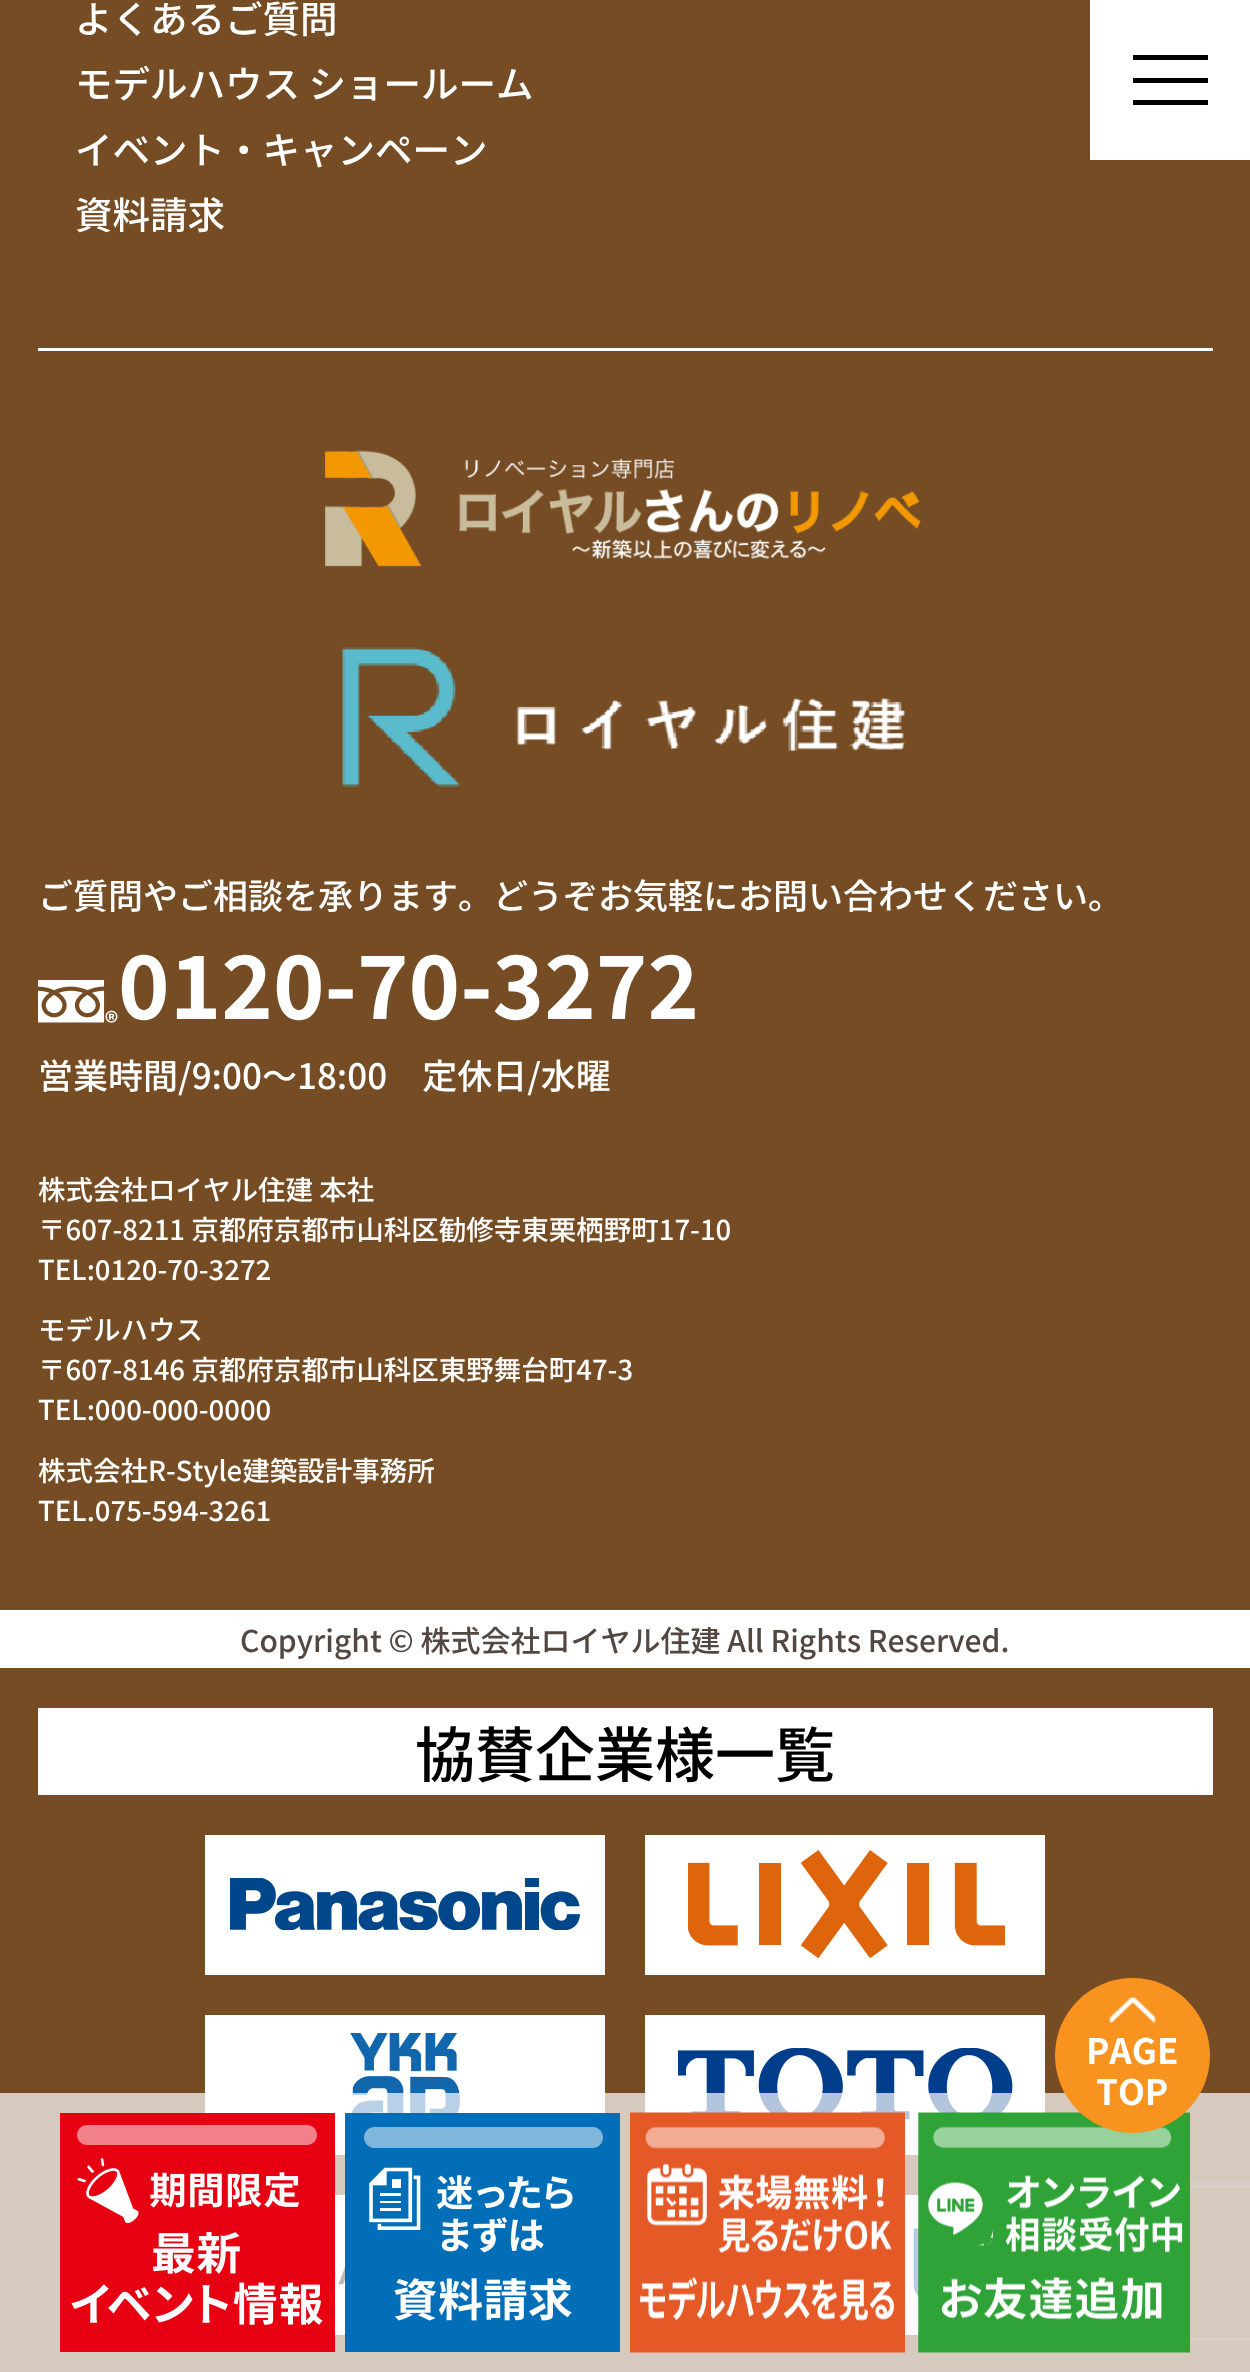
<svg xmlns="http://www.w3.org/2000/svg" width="1250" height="2372">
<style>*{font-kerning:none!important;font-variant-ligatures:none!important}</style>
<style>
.a{font:500 37.5px Noto Sans JP;fill:#fff}
.b{font:500 35px Noto Sans JP;fill:#fff}
.c{font:bold 87.5px Noto Sans JP;fill:#fff}
.d{font:500 27.5px Noto Sans JP;fill:#fff}
.e{font:500 30px Noto Sans JP;fill:#534741}
.f{font:500 60px Noto Sans JP;fill:#000}
.g{font:bold 35px Noto Sans JP;fill:#fff}
</style>
<defs>
<clipPath id="clip1"><path d="M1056 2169h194v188h-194zm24 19h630c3 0 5 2 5 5v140c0 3-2 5-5 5h-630c-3 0-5-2-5-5v-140c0-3 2-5 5-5z" clip-rule="evenodd"/></clipPath>
</defs>
<rect width="100%" height="100%" fill="#754c24"/>
<path fill="#fff" d="M38 348h1175v3H38z"/>
<image href="1.png" x="325" y="450" width="596" height="117"/>
<image href="2.png" x="342" y="647" width="564" height="140"/>
<image href="3.png" x="38" y="980" width="80" height="43"/>
<path fill="#fff" d="M0 1610h1250v58H0z"/>
<path fill="#fff" d="M38 1708h1175v87H38z"/>
<path fill="#fff" d="M205 1835h400v140H205z"/>
<image href="4.png" x="230" y="1878" width="350" height="52"/>
<path fill="#fff" d="M645 1835h400v140H645z"/>
<image href="5.png" x="688" y="1850" width="317" height="108"/>
<path fill="#fff" d="M205 2015h400v140H205z"/>
<image href="6.png" x="350" y="2033" width="110" height="80"/>
<path fill="#fff" d="M645 2015h400v140H645z"/>
<image href="7.png" x="678" y="2048" width="335" height="72"/>
<path fill="#fff" d="M335 2195h10v140H335z"/>
<image href="8.png" x="335" y="2248" width="10" height="40"/>
<path fill="#fff" d="M904 2195h15v140H904z"/>
<image href="9.png" x="913" y="2228" width="6" height="70"/>
<path fill="#fff" d="M1090 0h160v160H1090z"/>
<path fill="#000" d="M1133 55h75v5H1133z"/>
<path fill="#000" d="M1133 78h75v5H1133z"/>
<path fill="#000" d="M1133 100h75v5H1133z"/>
<g clip-path="url(#clip1)">
<rect fill="#808080" filter="blur(6px)" x="1075" y="2188" width="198" height="150" rx="5"/>
</g>
<path fill="#ffffffb3" d="M0 2093h1250v279H0z"/>
<image href="14.png" x="918" y="2112" width="272" height="241"/>
<circle fill="#f7931e" cx="1132.5" cy="2055.5" r="77.5"/>
<image href="10.png" x="1109" y="1997" width="47" height="26"/>
<image href="11.png" x="60" y="2113" width="275" height="239"/>
<image href="12.png" x="345" y="2113" width="275" height="239"/>
<image href="13.png" x="630" y="2112" width="275" height="241"/>
<text class="a" x="75" y="33">よくあるご質問</text>
<text class="a" x="75" y="98">モデルハウス ショールーム</text>
<text class="a" x="75" y="164">イベント・キャンペーン</text>
<text class="a" x="75" y="229">資料請求</text>
<text class="b" x="38" y="909">ご質問やご相談を承ります。どうぞお気軽にお問い合わせください。</text>
<text class="c" x="118" y="1019">0120-70-3272</text>
<text class="b" x="38" y="1089">営業時間/9:00～18:00　定休日/水曜</text>
<text class="d" x="38" y="1200">株式会社ロイヤル住建 本社</text>
<text class="d" x="38" y="1240">〒607-8211 京都府京都市山科区勧修寺東栗栖野町17-10</text>
<text class="d" x="38" y="1280">TEL:0120-70-3272</text>
<text class="d" x="38" y="1340">モデルハウス</text>
<text class="d" x="38" y="1380">〒607-8146 京都府京都市山科区東野舞台町47-3</text>
<text class="d" x="38" y="1420">TEL:000-000-0000</text>
<text class="d" x="38" y="1481">株式会社R-Style建築設計事務所</text>
<text class="d" x="38" y="1521">TEL.075-594-3261</text>
<text class="e" x="240" y="1652">Copyright © 株式会社ロイヤル住建 All Rights Reserved.</text>
<text class="f" x="415" y="1777">協賛企業様一覧</text>
<text class="g" x="1086" y="2064">PAGE</text>
<text class="g" x="1096" y="2105">TOP</text>
</svg>
